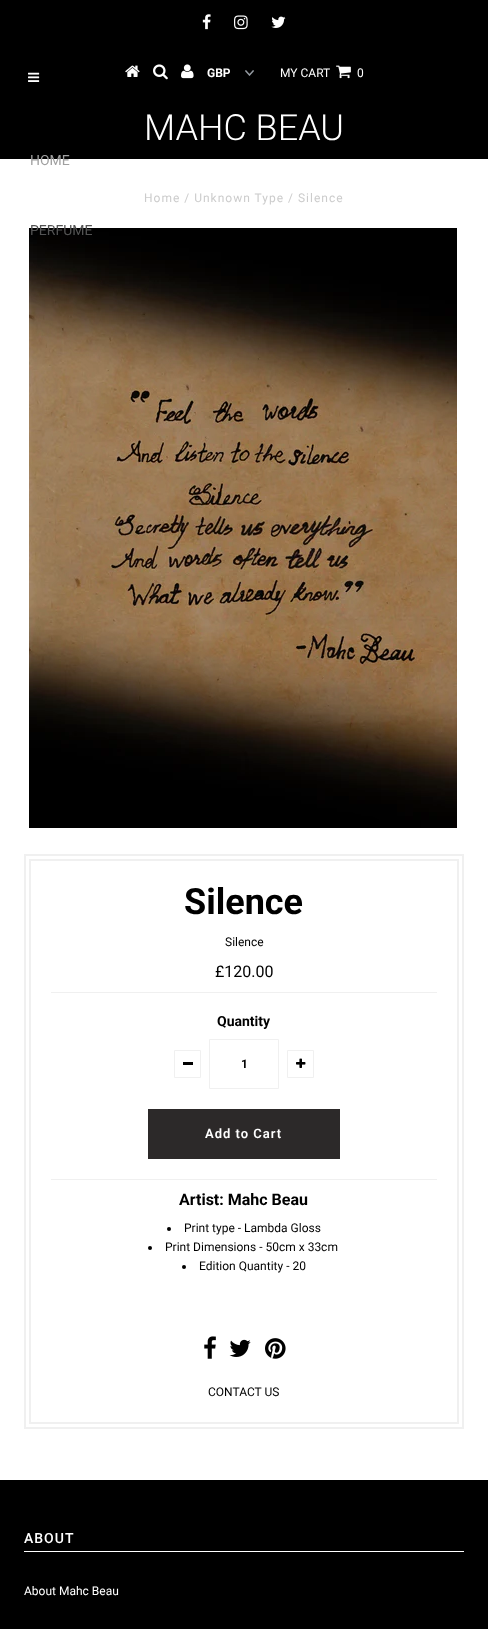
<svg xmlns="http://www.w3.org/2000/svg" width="488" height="1629">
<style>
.a{font:bold 12px Roboto;fill:#fff}
.b{font:12px Roboto;fill:#fff}
.c{font:300 36px Roboto;fill:#fff}
.d{font:14px Roboto;fill:#a0a0a0}
.e{font:14px Roboto;fill:#535353}
.f{font:12px Roboto;letter-spacing:1px;fill:#ccc}
.g{font:bold 36px Roboto;fill:#000}
.h{font:12px Roboto;fill:#000}
.i{font:16px Roboto;fill:#000}
.j{font:bold 14px Roboto;fill:#000}
.k{font:bold 12px Roboto;fill:#000}
.l{font:600 13px Roboto;letter-spacing:1px;fill:#fff}
.m{font:bold 16px Roboto;fill:#000}
.n{font:500 14px Roboto;letter-spacing:1px;fill:#fff}
</style>
<rect width="100%" height="100%" fill="#fff"/>
<path fill="#000" d="M0 0h488v159H0z"/>
<image href="1.png" x="202" y="14" width="9" height="16"/>
<image href="2.png" x="234" y="15" width="14" height="15"/>
<image href="3.png" x="271" y="16" width="15" height="12"/>
<image href="4.png" x="125" y="65" width="15" height="12"/>
<image href="5.png" x="153" y="64" width="15" height="16"/>
<image href="6.png" x="181" y="64" width="13" height="15"/>
<image href="7.png" x="245" y="70" width="9" height="6"/>
<image href="8.png" x="336" y="65" width="15" height="14"/>
<image href="9.png" x="28" y="72" width="12" height="10"/>
<image href="10.png" x="29" y="228" width="428" height="600"/>
<path fill="none" stroke="#f0f0f0" stroke-width="2" d="M25 855h438v573H25z"/>
<path fill="none" stroke="#f0f0f0" stroke-width="2" d="M30 860h428v563H30z"/>
<path fill="#f0f0f0" d="M51 992h386v1H51z"/>
<path fill="#f0f0f0" d="M51 1179h386v1H51z"/>
<path fill="none" stroke="#f0f0f0" d="M174.5 1050.5h26v27H174.5z"/>
<path fill="#000" d="M183 1062h10v3H183z"/>
<path fill="none" stroke="#f0f0f0" d="M209.5 1039.5h69v49H209.5z"/>
<path fill="none" stroke="#f0f0f0" d="M287.5 1050.5h26v27H287.5z"/>
<image href="11.png" x="296" y="1058" width="10" height="10"/>
<path fill="#2c2929" d="M148 1109h192v50H148z"/>
<circle fill="#000" cx="169" cy="1229" r="2"/>
<circle fill="#000" cx="150" cy="1248" r="2"/>
<circle fill="#000" cx="184" cy="1267" r="2"/>
<image href="12.png" x="204" y="1336" width="12" height="23"/>
<image href="13.png" x="229" y="1339" width="22" height="18"/>
<image href="14.png" x="265" y="1338" width="21" height="21"/>
<path fill="#000" d="M0 1480h488v149H0z"/>
<path fill="#fff" d="M24 1551h440v1H24z"/>
<text class="a" x="207" y="77">GBP</text>
<text class="b" x="280" y="77">MY CART</text>
<text class="b" x="357" y="77">0</text>
<text class="c" x="144" y="140">MAHC BEAU</text>
<text class="d" x="30" y="165">HOME</text>
<text class="e" x="30" y="235">PERFUME</text>
<text class="f" x="144" y="202">Home / Unknown Type / Silence</text>
<text class="g" x="184" y="914">Silence</text>
<text class="h" x="225" y="946">Silence</text>
<text class="i" x="215" y="977">£120.00</text>
<text class="j" x="217" y="1026">Quantity</text>
<text class="k" x="241" y="1068">1</text>
<text class="l" x="205" y="1138">Add to Cart</text>
<text class="m" x="179" y="1205">Artist: Mahc Beau</text>
<text class="h" x="184" y="1232">Print type - Lambda Gloss</text>
<text class="h" x="165" y="1251">Print Dimensions - 50cm x 33cm</text>
<text class="h" x="199" y="1270">Edition Quantity - 20</text>
<text class="h" x="208" y="1396">CONTACT US</text>
<text class="n" x="24" y="1543">ABOUT</text>
<text class="b" x="24" y="1595">About Mahc Beau</text>
</svg>
